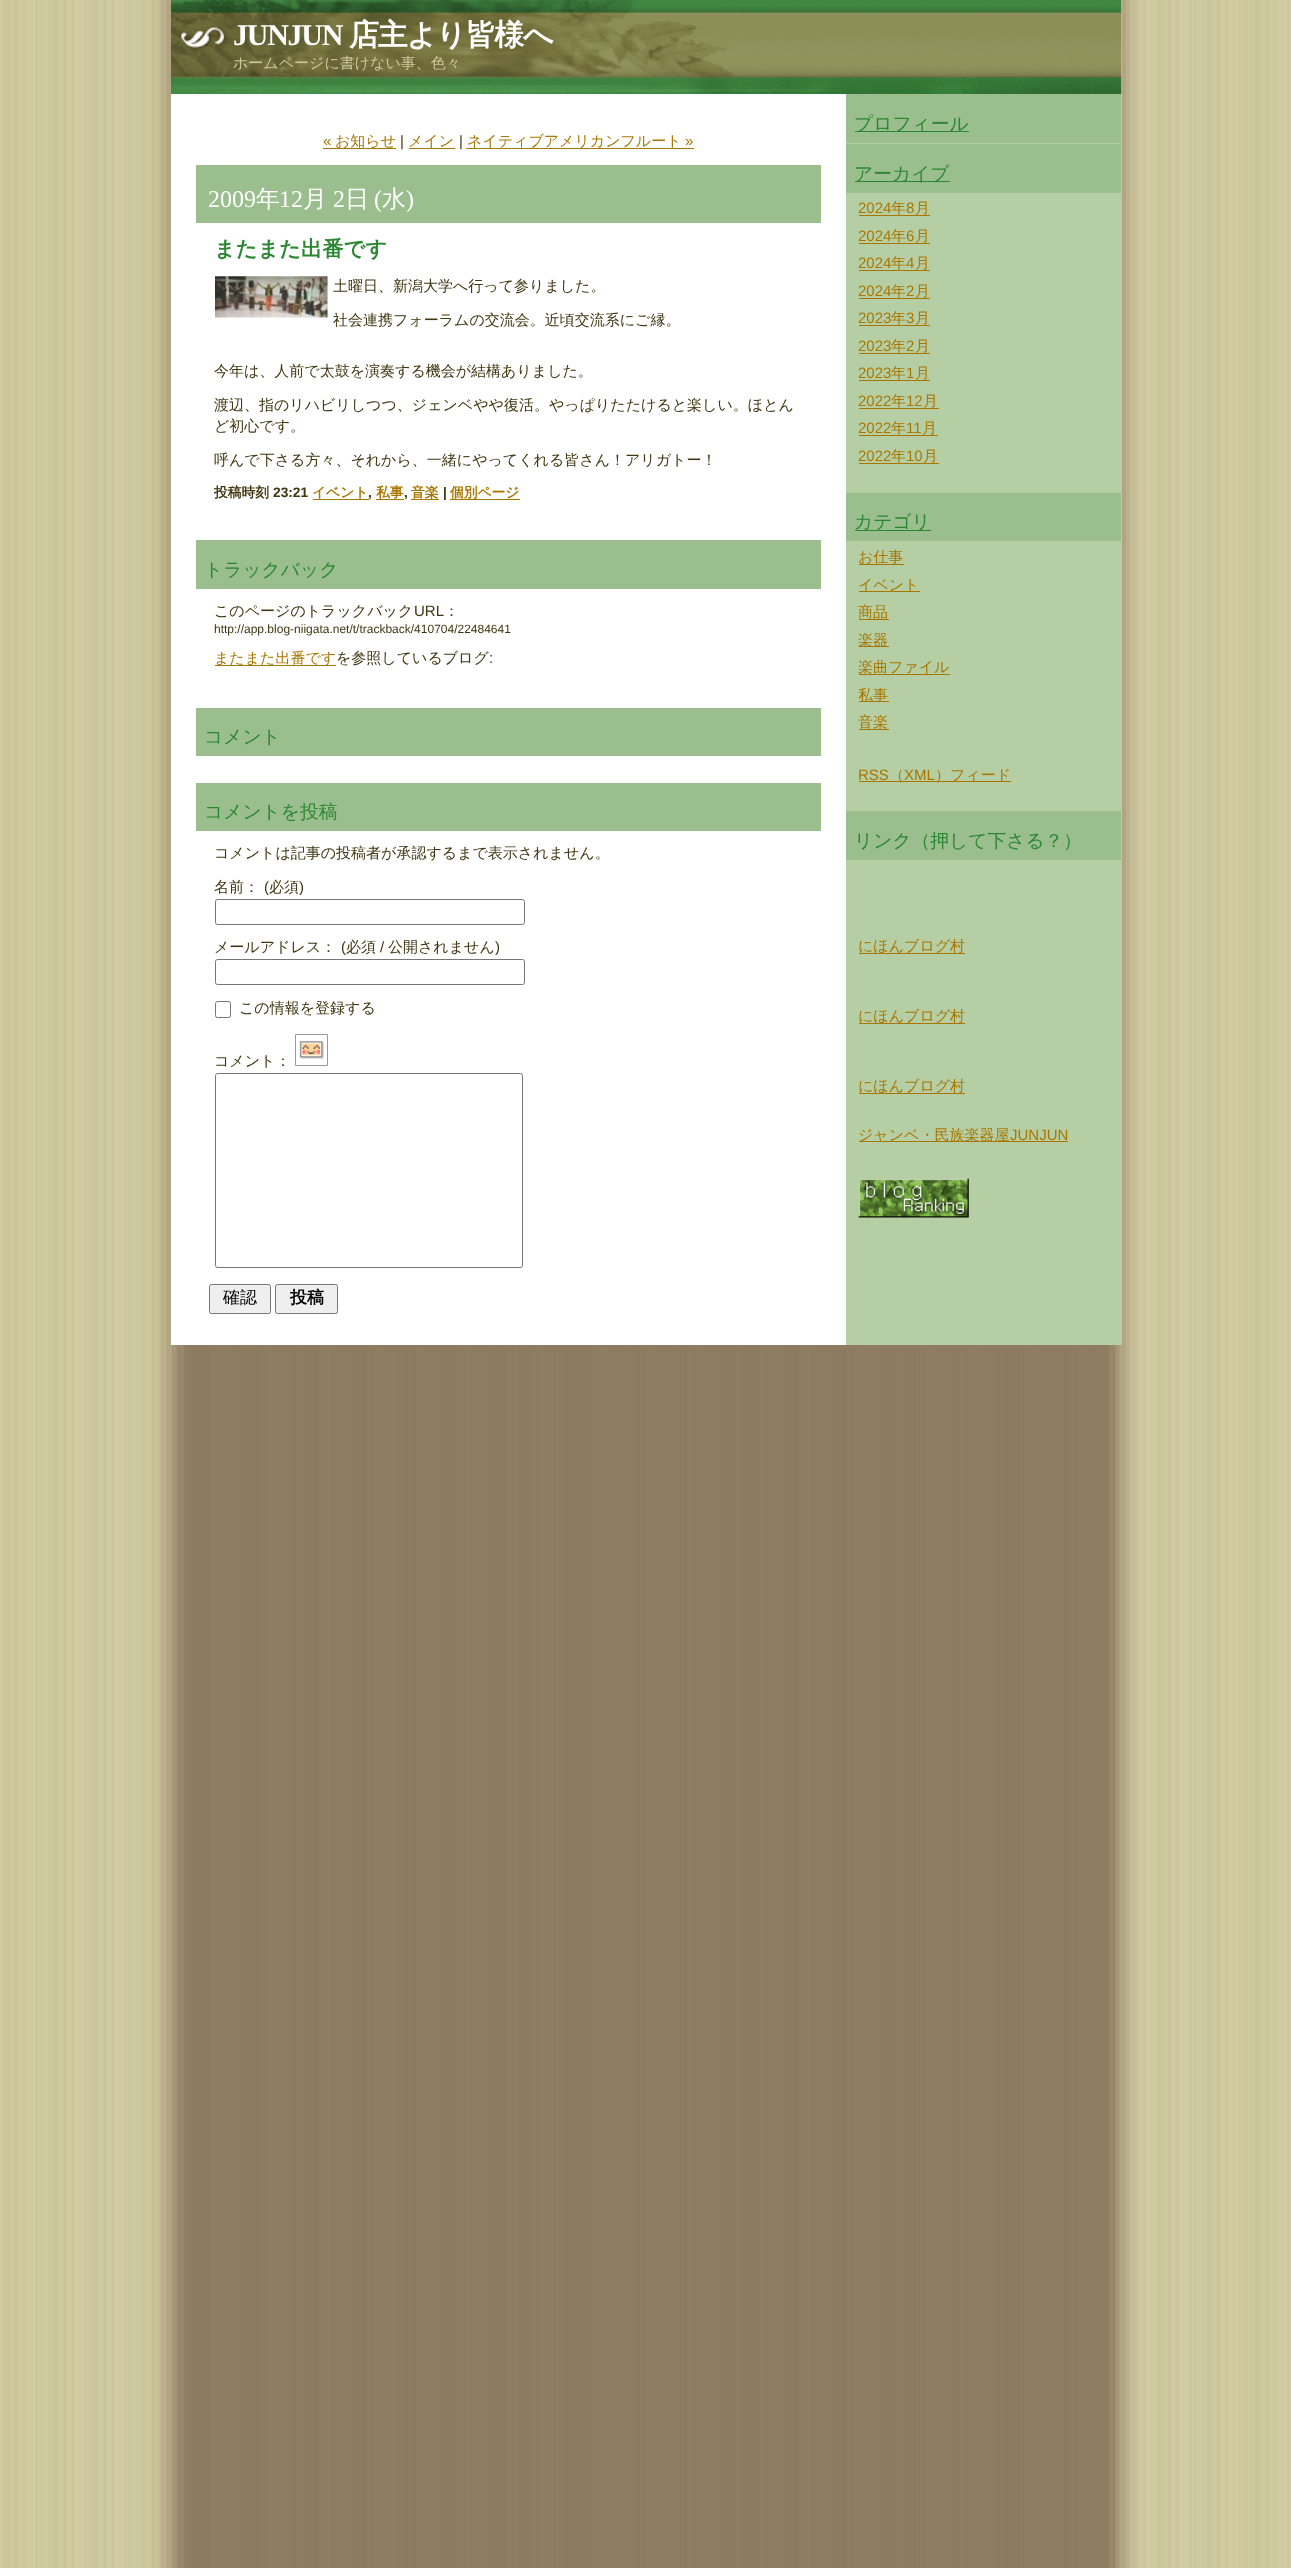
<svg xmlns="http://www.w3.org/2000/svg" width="1291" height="2568">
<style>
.a{font:bold 30px Liberation Serif;letter-spacing:-1.25px;fill:#fff}
.b{font:bold 30px WenQuanYi Zen Hei;letter-spacing:-1.25px;fill:#fff}
.c{font:500 15px WenQuanYi Zen Hei;fill:#cdc89d}
.d{font:15px Liberation Sans;fill:#a97700}
.e{font:500 15px WenQuanYi Zen Hei;fill:#a97700}
.f{font:15px Liberation Sans;fill:#403610}
.g{font:24px Liberation Serif;fill:#fff}
.h{font:500 24px WenQuanYi Zen Hei;fill:#fff}
.i{font:bold 21.25px WenQuanYi Zen Hei;fill:#2b8732}
.j{font:500 15px WenQuanYi Zen Hei;fill:#403610}
.k{font:bold 13.75px WenQuanYi Zen Hei;fill:#403610}
.l{font:bold 13.75px Liberation Sans;fill:#403610}
.m{font:bold 13.75px WenQuanYi Zen Hei;fill:#a97700}
.n{font:500 18.75px WenQuanYi Zen Hei;fill:#2b8732}
.o{font:12px Liberation Sans;fill:#403610}
.p{font:500 17px WenQuanYi Zen Hei;fill:#000}
.q{font:bold 17px WenQuanYi Zen Hei;fill:#000}
</style>
<rect width="100%" height="100%" fill="#d1cba1"/>
<image href="1.png" x="3" y="0" width="1286" height="2568"/>
<path fill="#fff" d="M171 94h675v1251H171z"/>
<path fill="#b5cea4" d="M846 0h276v1345H846z"/>
<path fill="#3a813c" d="M171 0h950v94H171z"/>
<image href="2.png" x="171" y="0" width="951" height="94"/>
<path fill="#a97700" d="M323 148h73v1H323z"/>
<path fill="#a97700" d="M409 148h46v1H409z"/>
<path fill="#a97700" d="M466 148h228v1H466z"/>
<path fill="#9bbe8e" d="M196 165h625v58H196z"/>
<image href="3.png" x="215" y="276" width="113" height="42"/>
<path fill="#a97700" d="M313 499h56v1H313z"/>
<path fill="#a97700" d="M376 499h28v1H376z"/>
<path fill="#a97700" d="M411 499h28v1H411z"/>
<path fill="#a97700" d="M450 499h70v1H450z"/>
<path fill="#9bbe8e" d="M196 540h625v49H196z"/>
<path fill="#a97700" d="M215 665h121v1H215z"/>
<path fill="#9bbe8e" d="M196 708h625v48H196z"/>
<path fill="#9bbe8e" d="M196 783h625v48H196z"/>
<rect fill="none" stroke="#767676" x="215.5" y="899.5" width="309" height="25" rx="2"/>
<rect fill="none" stroke="#767676" x="215.5" y="959.5" width="309" height="25" rx="2"/>
<rect fill="none" stroke="#767676" x="215.5" y="1001.5" width="15" height="16" rx="2"/>
<path fill="none" stroke="#999" d="M295.5 1034.5h32v31H295.5z"/>
<image href="4.png" x="299" y="1041" width="25" height="18"/>
<rect fill="none" stroke="#767676" x="215.5" y="1073.5" width="307" height="194" rx="2"/>
<rect fill="#efefef" stroke="#767676" x="209.5" y="1284.5" width="61" height="29" rx="2"/>
<rect fill="#efefef" stroke="#767676" x="275.5" y="1284.5" width="62" height="29" rx="2"/>
<path fill="#9bbe8e" d="M846 94h275v49H846z"/>
<path fill="#2b8732" d="M855 131h114v1H855z"/>
<path fill="#9bbe8e" d="M846 144h275v49H846z"/>
<path fill="#2b8732" d="M855 181h95v1H855z"/>
<path fill="#a97700" d="M859 215h71v1H859z"/>
<path fill="#a97700" d="M859 243h71v1H859z"/>
<path fill="#a97700" d="M859 270h71v1H859z"/>
<path fill="#a97700" d="M859 298h71v1H859z"/>
<path fill="#a97700" d="M859 325h71v1H859z"/>
<path fill="#a97700" d="M859 353h71v1H859z"/>
<path fill="#a97700" d="M859 380h71v1H859z"/>
<path fill="#a97700" d="M859 408h80v1H859z"/>
<path fill="#a97700" d="M859 435h79v1H859z"/>
<path fill="#a97700" d="M859 463h80v1H859z"/>
<path fill="#9bbe8e" d="M846 493h275v48H846z"/>
<path fill="#2b8732" d="M855 530h76v1H855z"/>
<path fill="#a97700" d="M859 564h45v1H859z"/>
<path fill="#a97700" d="M859 591h61v1H859z"/>
<path fill="#a97700" d="M859 619h30v1H859z"/>
<path fill="#a97700" d="M859 646h30v1H859z"/>
<path fill="#a97700" d="M859 674h91v1H859z"/>
<path fill="#a97700" d="M859 701h30v1H859z"/>
<path fill="#a97700" d="M859 729h30v1H859z"/>
<path fill="#a97700" d="M859 781h152v1H859z"/>
<path fill="#9bbe8e" d="M846 811h275v49H846z"/>
<path fill="#a97700" d="M859 953h106v1H859z"/>
<path fill="#a97700" d="M859 1023h106v1H859z"/>
<path fill="#a97700" d="M859 1093h106v1H859z"/>
<path fill="#a97700" d="M859 1141h209v1H859z"/>
<image href="5.png" x="858" y="1178" width="111" height="40"/>
<text class="a" x="233" y="45">JUNJUN</text>
<text class="b" x="349" y="45">店主より皆様へ</text>
<text class="c" x="233" y="68">ホームページに書けない事、色々</text>
<text class="d" x="323" y="146">«</text>
<text class="e" x="335" y="146">お知らせ</text>
<text class="f" x="400" y="146">|</text>
<text class="e" x="408" y="146">メイン</text>
<text class="f" x="459" y="146">|</text>
<text class="e" x="467" y="146">ネイティブアメリカンフルート</text>
<text class="d" x="685" y="146">»</text>
<text class="g" x="208" y="207">2009</text>
<text class="h" x="256" y="207">年</text>
<text class="g" x="279" y="207">12</text>
<text class="h" x="303" y="207">月</text>
<text class="g" x="333" y="207">2</text>
<text class="h" x="345" y="207">日</text>
<text class="g" x="374" y="207">(</text>
<text class="h" x="382" y="207">水</text>
<text class="g" x="406" y="207">)</text>
<text class="i" x="214" y="256">またまた出番です</text>
<text class="j" x="333" y="291">土曜日、新潟大学へ行って参りました。</text>
<text class="j" x="333" y="325">社会連携フォーラムの交流会。近頃交流系にご縁。</text>
<text class="j" x="214" y="376">今年は、人前で太鼓を演奏する機会が結構ありました。</text>
<text class="j" x="214" y="410">渡辺、指のリハビリしつつ、ジェンベやや復活。やっぱりたたけると楽しい。ほとん</text>
<text class="j" x="214" y="431">ど初心です。</text>
<text class="j" x="214" y="465">呼んで下さる方々、それから、一緒にやってくれる皆さん！アリガトー！</text>
<text class="k" x="214" y="497">投稿時刻</text>
<text class="l" x="273" y="497">23:21</text>
<text class="m" x="312" y="497">イベント</text>
<text class="l" x="368" y="497">,</text>
<text class="m" x="376" y="497">私事</text>
<text class="l" x="404" y="497">,</text>
<text class="m" x="411" y="497">音楽</text>
<text class="l" x="443" y="497">|</text>
<text class="m" x="450" y="497">個別ページ</text>
<text class="n" x="204" y="576">トラックバック</text>
<text class="j" x="214" y="616">このページのトラックバック</text>
<text class="f" x="414" y="616">URL</text>
<text class="j" x="444" y="616">：</text>
<text class="o" x="214" y="633">http://app.blog-niigata.net/t/trackback/410704/22484641</text>
<text class="e" x="214" y="663">またまた出番です</text>
<text class="j" x="336" y="663">を参照しているブログ</text>
<text class="f" x="489" y="663">:</text>
<text class="n" x="204" y="743">コメント</text>
<text class="n" x="204" y="818">コメントを投稿</text>
<text class="j" x="214" y="858">コメントは記事の投稿者が承認するまで表示されません。</text>
<text class="j" x="214" y="892">名前：</text>
<text class="f" x="264" y="892">(</text>
<text class="j" x="269" y="892">必須</text>
<text class="f" x="299" y="892">)</text>
<text class="j" x="214" y="952">メールアドレス：</text>
<text class="f" x="341" y="952">(</text>
<text class="j" x="346" y="952">必須</text>
<text class="f" x="380" y="952">/</text>
<text class="j" x="388" y="952">公開されません</text>
<text class="f" x="495" y="952">)</text>
<text class="j" x="239" y="1013">この情報を登録する</text>
<text class="j" x="214" y="1066">コメント：</text>
<text class="p" x="223" y="1303">確認</text>
<text class="q" x="290" y="1303">投稿</text>
<text class="n" x="854" y="130">プロフィール</text>
<text class="n" x="854" y="180">アーカイブ</text>
<text class="d" x="858" y="213">2024</text>
<text class="e" x="891" y="213">年</text>
<text class="d" x="906" y="213">8</text>
<text class="e" x="915" y="213">月</text>
<text class="d" x="858" y="241">2024</text>
<text class="e" x="891" y="241">年</text>
<text class="d" x="906" y="241">6</text>
<text class="e" x="915" y="241">月</text>
<text class="d" x="858" y="268">2024</text>
<text class="e" x="891" y="268">年</text>
<text class="d" x="906" y="268">4</text>
<text class="e" x="915" y="268">月</text>
<text class="d" x="858" y="296">2024</text>
<text class="e" x="891" y="296">年</text>
<text class="d" x="906" y="296">2</text>
<text class="e" x="915" y="296">月</text>
<text class="d" x="858" y="323">2023</text>
<text class="e" x="891" y="323">年</text>
<text class="d" x="906" y="323">3</text>
<text class="e" x="915" y="323">月</text>
<text class="d" x="858" y="351">2023</text>
<text class="e" x="891" y="351">年</text>
<text class="d" x="906" y="351">2</text>
<text class="e" x="915" y="351">月</text>
<text class="d" x="858" y="378">2023</text>
<text class="e" x="891" y="378">年</text>
<text class="d" x="906" y="378">1</text>
<text class="e" x="915" y="378">月</text>
<text class="d" x="858" y="406">2022</text>
<text class="e" x="891" y="406">年</text>
<text class="d" x="906" y="406">12</text>
<text class="e" x="923" y="406">月</text>
<text class="d" x="858" y="433">2022</text>
<text class="e" x="891" y="433">年</text>
<text class="d" x="906" y="433">11</text>
<text class="e" x="922" y="433">月</text>
<text class="d" x="858" y="461">2022</text>
<text class="e" x="891" y="461">年</text>
<text class="d" x="906" y="461">10</text>
<text class="e" x="923" y="461">月</text>
<text class="n" x="854" y="528">カテゴリ</text>
<text class="e" x="858" y="562">お仕事</text>
<text class="e" x="858" y="590">イベント</text>
<text class="e" x="858" y="617">商品</text>
<text class="e" x="858" y="645">楽器</text>
<text class="e" x="858" y="672">楽曲ファイル</text>
<text class="e" x="858" y="700">私事</text>
<text class="e" x="858" y="727">音楽</text>
<text class="d" x="858" y="780">RSS</text>
<text class="e" x="889" y="780">（</text>
<text class="d" x="904" y="780">XML</text>
<text class="e" x="935" y="780">）フィード</text>
<text class="n" x="854" y="847">リンク（押して下さる？）</text>
<text class="e" x="858" y="951">にほんブログ村</text>
<text class="e" x="858" y="1021">にほんブログ村</text>
<text class="e" x="858" y="1091">にほんブログ村</text>
<text class="e" x="858" y="1140">ジャンベ・民族楽器屋</text>
<text class="d" x="1010" y="1140">JUNJUN</text>
</svg>
